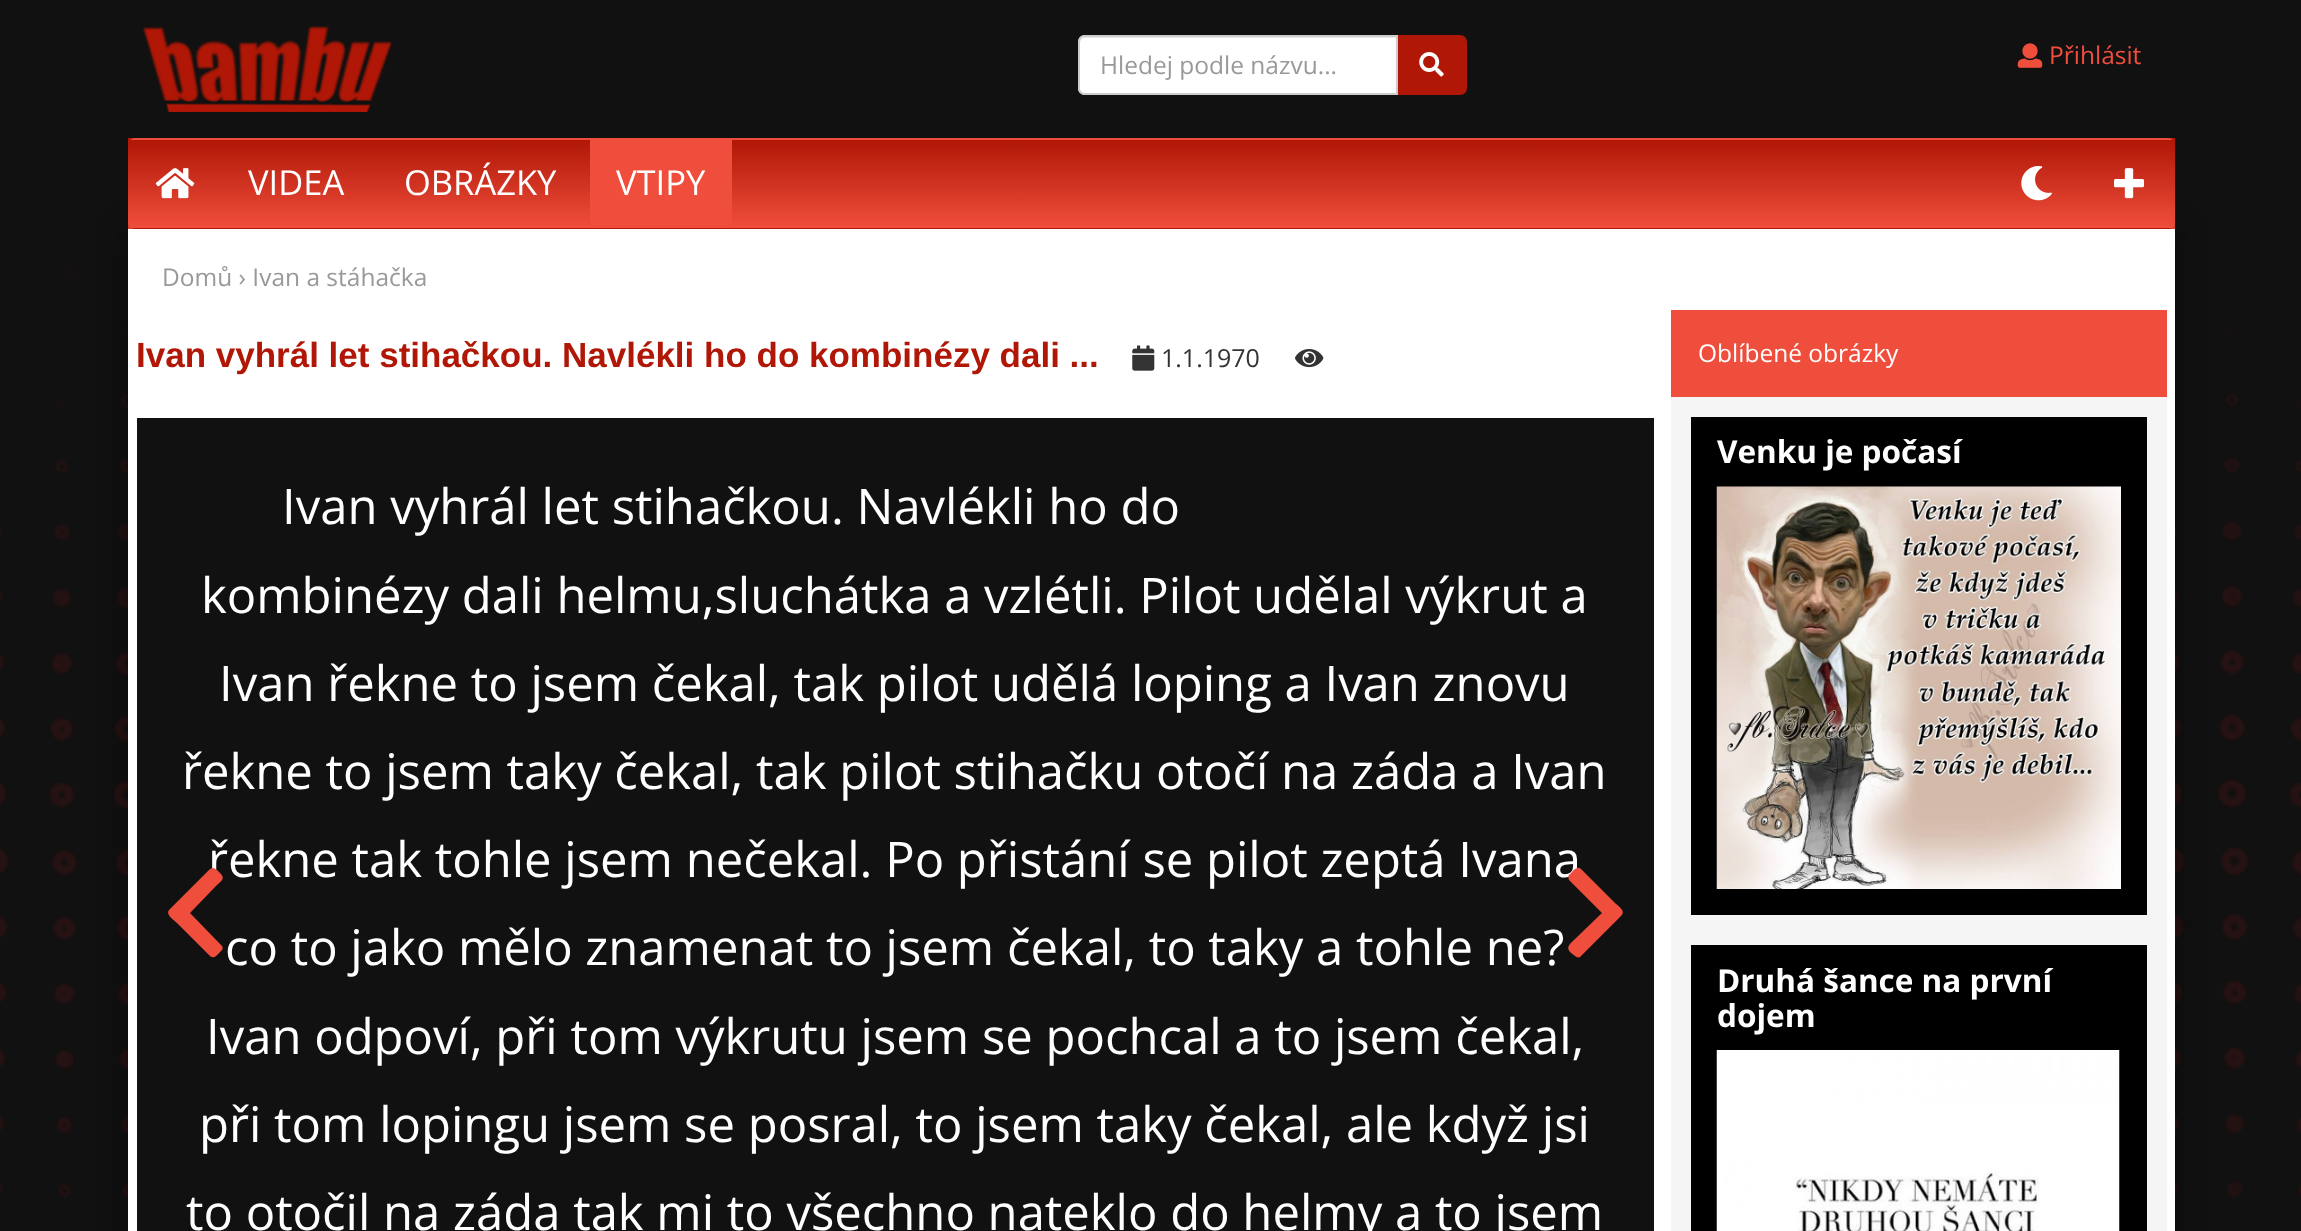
<svg xmlns="http://www.w3.org/2000/svg" width="2301" height="1231">
<style>
.a{font:24.5px Open Sans;fill:#999}
.b{font:24.5px Open Sans;fill:#f04e3c}
.c{font:34.5px Open Sans;fill:#fff}
.d{font:bold 35px Liberation Sans;fill:#b01706}
.e{font:25px Open Sans;fill:#333}
.f{font:49px Open Sans;fill:#fff}
.g{font:24.5px Open Sans;fill:#fff}
.h{font:bold 31.5px Open Sans;fill:#fff}
</style>
<defs>
<linearGradient id="g1" gradientUnits="userSpaceOnUse" x1="1152" y1="138" x2="1152" y2="229"><stop offset="0" stop-color="#b01706"/><stop offset="1" stop-color="#f04e3c"/></linearGradient>
<clipPath id="clip1"><rect x="128" y="138" width="2047" height="91" rx="7"/></clipPath>
<linearGradient id="g2" gradientUnits="userSpaceOnUse" x1="1152" y1="52" x2="1152" y2="140"><stop offset="0" stop-color="#b01706"/><stop offset="1" stop-color="#f04e3c"/></linearGradient>
<linearGradient id="g3" gradientUnits="userSpaceOnUse" x1="1152" y1="140" x2="1152" y2="228"><stop offset="0" stop-color="#b01706"/><stop offset="1" stop-color="#f04e3c"/></linearGradient>
<linearGradient id="g4" gradientUnits="userSpaceOnUse" x1="1152" y1="227" x2="1152" y2="315"><stop offset="0" stop-color="#b01706"/><stop offset="1" stop-color="#f04e3c"/></linearGradient>
</defs>
<rect width="100%" height="100%" fill="#111"/>
<image href="1.png" x="0" y="265" width="2301" height="934"/>
<image href="2.png" x="142" y="26" width="250" height="86"/>
<path fill="#b01706" stroke="#b01706" stroke-width="2" d="M1398 36h62c3.5 0 6 2.5 6 6v46c0 3.5-2.5 6-6 6h-62z"/>
<path fill="#fff" d="M1085 35h313v60h-313c-4 0-7-3-7-7v-46c0-4 3-7 7-7z"/>
<path fill="#ececec" d="M1085 38h311v55h1v-56h-312c-3 0-5 2-5 5v2c0-3 2-6 5-6z"/>
<path fill="none" stroke="#ccc" stroke-width="2" d="M1085 36h312v58h-312c-3.5 0-6-2.5-6-6v-46c0-3.5 2.5-6 6-6z"/>
<image href="3.png" x="1419" y="52" width="25" height="25"/>
<image href="4.png" x="2017" y="43" width="26" height="25"/>
<path fill="url(#g1)" d="M128 138h2047v91H128z"/>
<g clip-path="url(#clip1)">
<path fill="url(#g2)" d="M128 138h2047v2H128z"/>
</g>
<path fill="#00000066" filter="blur(17.5px)" d="M128 229h2047v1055H128z"/>
<g clip-path="url(#clip1)">
<path fill="url(#g3)" d="M128 140h2047v88H128z"/>
<path fill="url(#g4)" d="M128 228h2047v1H128z"/>
</g>
<image href="5.png" x="155" y="168" width="40" height="31"/>
<path fill="#f04e3c" d="M590 140h142v85H590z"/>
<image href="6.png" x="2021" y="166" width="31" height="35"/>
<image href="7.png" x="2114" y="168" width="30" height="31"/>
<path fill="#fff" d="M128 229h2047v1002H128z"/>
<image href="8.png" x="1132" y="345" width="23" height="26"/>
<image href="9.png" x="1295" y="349" width="29" height="19"/>
<path fill="#111" d="M137 418h1517v813H137z"/>
<path fill="#f04e3c" d="M1671 310h496v87H1671z"/>
<path fill="#f5f5f5" d="M1671 397h496v834H1671z"/>
<path fill="#000" d="M1691 417h456v498H1691z"/>
<image href="10.png" x="1716" y="486" width="405" height="403"/>
<path fill="#000" d="M1691 945h456v286H1691z"/>
<image href="11.png" x="1716" y="1050" width="404" height="181"/>
<text class="a" x="1100" y="74">Hledej podle názvu...</text>
<text class="b" x="2049" y="64">Přihlásit</text>
<text class="c" x="248" y="195">VIDEA</text>
<text class="c" x="404" y="195">OBRÁZKY</text>
<text class="c" x="616" y="195">VTIPY</text>
<text class="a" x="162" y="286">Domů › Ivan a stáhačka</text>
<text class="d" x="136" y="367">Ivan vyhrál let stihačkou. Navlékli ho do kombinézy dali ...</text>
<text class="e" x="1161" y="367">1.1.1970</text>
<text class="f" x="282" y="524">Ivan vyhrál let stihačkou. Navlékli ho do</text>
<text class="f" x="201" y="613">kombinézy dali helmu,sluchátka a vzlétli. Pilot udělal výkrut a</text>
<text class="f" x="219" y="701">Ivan řekne to jsem čekal, tak pilot udělá loping a Ivan znovu</text>
<text class="f" x="182" y="789">řekne to jsem taky čekal, tak pilot stihačku otočí na záda a Ivan</text>
<text class="f" x="208" y="877">řekne tak tohle jsem nečekal. Po přistání se pilot zeptá Ivana</text>
<text class="f" x="225" y="965">co to jako mělo znamenat to jsem čekal, to taky a tohle ne?</text>
<text class="f" x="206" y="1054">Ivan odpoví, při tom výkrutu jsem se pochcal a to jsem čekal,</text>
<text class="f" x="199" y="1142">při tom lopingu jsem se posral, to jsem taky čekal, ale když jsi</text>
<text class="f" x="186" y="1230">to otočil na záda tak mi to všechno nateklo do helmy a to jsem</text>
<path fill="#f04e3c" d="M170 909l40-40c4-3 7 1 10 4c6 6 1 8-4 13l-26 27l32 33c1 1 1 4-1 5c-3 3-7 9-11 5l-33-33c-3-3-13-9-7-14z"/>
<path fill="#f04e3c" d="M1621 916l-40 40c-3 4-7-1-10-3c-6-6-1-9 4-14l27-26l-33-33c-1-2-1-5 1-6c3-3 7-9 11-5l34 34c2 2 12 8 6 13z"/>
<text class="g" x="1698" y="362">Oblíbené obrázky</text>
<text class="h" x="1717" y="463">Venku je počasí</text>
<text class="h" x="1717" y="992">Druhá šance na první</text>
<text class="h" x="1717" y="1027">dojem</text>
</svg>
